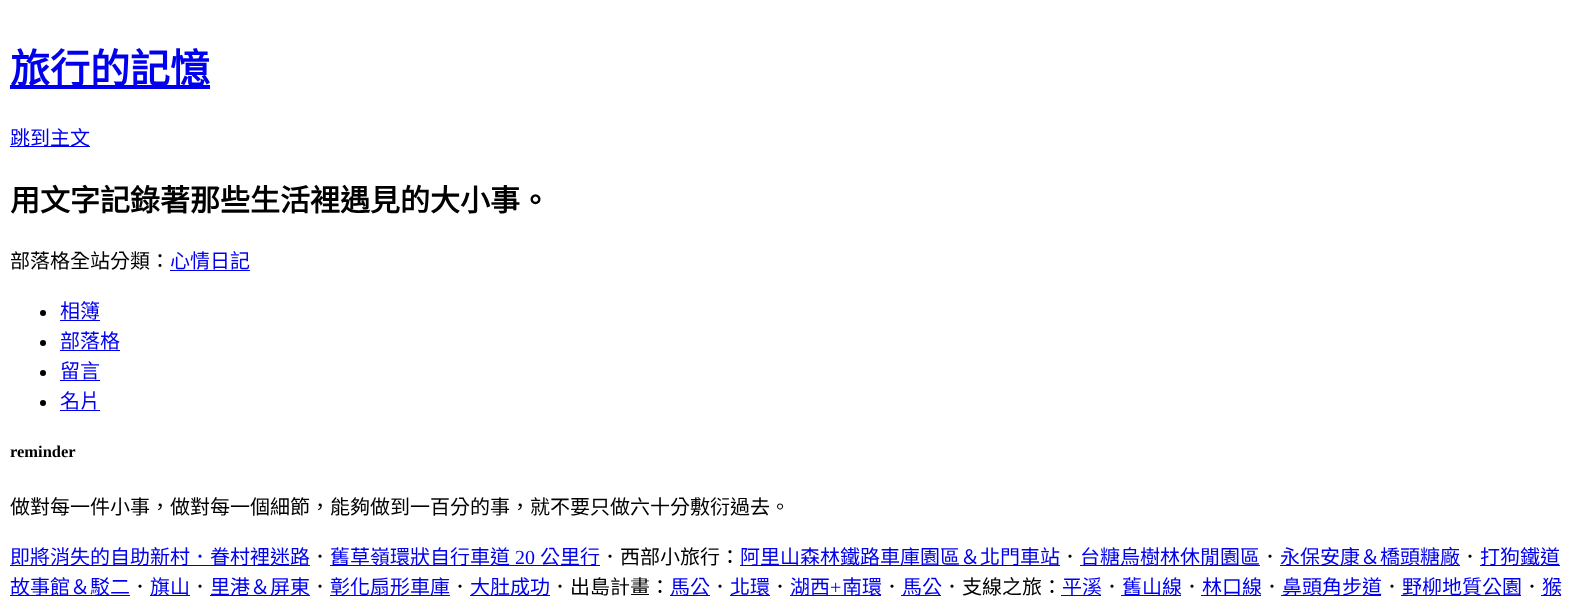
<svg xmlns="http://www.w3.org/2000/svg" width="1583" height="614">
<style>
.a{font:bold 40px Noto Sans CJK TC;fill:#00e}
.b{font:20px Noto Sans CJK TC;fill:#00e}
.c{font:bold 30px Noto Sans CJK TC;fill:#000}
.d{font:20px Noto Sans CJK TC;fill:#000}
.e{font:bold 16.5px Liberation Serif;fill:#000}
.f{font:20px Liberation Serif;fill:#00e}
</style>
<rect width="100%" height="100%" fill="#fff"/>
<path fill="#00e" d="M10 85h200v4H10z"/>
<path fill="#00e" d="M10 146h80v1H10z"/>
<path fill="#00e" d="M170 270h80v1H170z"/>
<circle fill="#000" cx="43" cy="313" r="3"/>
<path fill="#00e" d="M60 320h40v1H60z"/>
<circle fill="#000" cx="43" cy="343" r="3"/>
<path fill="#00e" d="M60 350h60v1H60z"/>
<circle fill="#000" cx="43" cy="373" r="3"/>
<path fill="#00e" d="M60 380h40v1H60z"/>
<circle fill="#000" cx="43" cy="403" r="3"/>
<path fill="#00e" d="M60 410h40v1H60z"/>
<path fill="#00e" d="M10 565h300v1H10z"/>
<path fill="#00e" d="M330 565h270v1H330z"/>
<path fill="#00e" d="M740 565h320v1H740z"/>
<path fill="#00e" d="M1080 565h180v1H1080z"/>
<path fill="#00e" d="M1280 565h180v1H1280z"/>
<path fill="#00e" d="M1480 565h80v1H1480z"/>
<path fill="#00e" d="M10 595h120v1H10z"/>
<path fill="#00e" d="M150 595h40v1H150z"/>
<path fill="#00e" d="M210 595h100v1H210z"/>
<path fill="#00e" d="M330 595h120v1H330z"/>
<path fill="#00e" d="M470 595h80v1H470z"/>
<path fill="#00e" d="M670 595h40v1H670z"/>
<path fill="#00e" d="M730 595h40v1H730z"/>
<path fill="#00e" d="M790 595h91v1H790z"/>
<path fill="#00e" d="M901 595h40v1H901z"/>
<path fill="#00e" d="M1061 595h40v1H1061z"/>
<path fill="#00e" d="M1121 595h60v1H1121z"/>
<path fill="#00e" d="M1201 595h60v1H1201z"/>
<path fill="#00e" d="M1281 595h100v1H1281z"/>
<path fill="#00e" d="M1401 595h120v1H1401z"/>
<path fill="#00e" d="M1541 595h20v1H1541z"/>
<text class="a" x="10" y="83">旅行的記憶</text>
<text class="b" x="10" y="145">跳到主文</text>
<text class="c" x="10" y="211">用文字記錄著那些生活裡遇見的大小事。</text>
<text class="d" x="10" y="268">部落格全站分類：</text>
<text class="b" x="170" y="268">心情日記</text>
<text class="b" x="60" y="318">相簿</text>
<text class="b" x="60" y="348">部落格</text>
<text class="b" x="60" y="378">留言</text>
<text class="b" x="60" y="408">名片</text>
<text class="e" x="10" y="457">reminder</text>
<text class="d" x="10" y="514">做對每一件小事，做對每一個細節，能夠做到一百分的事，就不要只做六十分敷衍過去。</text>
<text class="b" x="10" y="564">即將消失的自助新村．眷村裡迷路</text>
<text class="d" x="310" y="564">．</text>
<text class="b" x="330" y="564">舊草嶺環狀自行車道</text>
<text class="f" x="515" y="564">20</text>
<text class="b" x="540" y="564">公里行</text>
<text class="d" x="600" y="564">．西部小旅行：</text>
<text class="b" x="740" y="564">阿里山森林鐵路車庫園區＆北門車站</text>
<text class="d" x="1060" y="564">．</text>
<text class="b" x="1080" y="564">台糖烏樹林休閒園區</text>
<text class="d" x="1260" y="564">．</text>
<text class="b" x="1280" y="564">永保安康＆橋頭糖廠</text>
<text class="d" x="1460" y="564">．</text>
<text class="b" x="1480" y="564">打狗鐵道</text>
<text class="b" x="10" y="594">故事館＆駁二</text>
<text class="d" x="130" y="594">．</text>
<text class="b" x="150" y="594">旗山</text>
<text class="d" x="190" y="594">．</text>
<text class="b" x="210" y="594">里港＆屏東</text>
<text class="d" x="310" y="594">．</text>
<text class="b" x="330" y="594">彰化扇形車庫</text>
<text class="d" x="450" y="594">．</text>
<text class="b" x="470" y="594">大肚成功</text>
<text class="d" x="550" y="594">．出島計畫：</text>
<text class="b" x="670" y="594">馬公</text>
<text class="d" x="710" y="594">．</text>
<text class="b" x="730" y="594">北環</text>
<text class="d" x="770" y="594">．</text>
<text class="b" x="790" y="594">湖西</text>
<text class="f" x="830" y="594">+</text>
<text class="b" x="842" y="594">南環</text>
<text class="d" x="882" y="594">．</text>
<text class="b" x="902" y="594">馬公</text>
<text class="d" x="942" y="594">．支線之旅：</text>
<text class="b" x="1062" y="594">平溪</text>
<text class="d" x="1102" y="594">．</text>
<text class="b" x="1122" y="594">舊山線</text>
<text class="d" x="1182" y="594">．</text>
<text class="b" x="1202" y="594">林口線</text>
<text class="d" x="1262" y="594">．</text>
<text class="b" x="1282" y="594">鼻頭角步道</text>
<text class="d" x="1382" y="594">．</text>
<text class="b" x="1402" y="594">野柳地質公園</text>
<text class="d" x="1522" y="594">．</text>
<text class="b" x="1542" y="594">猴</text>
</svg>
